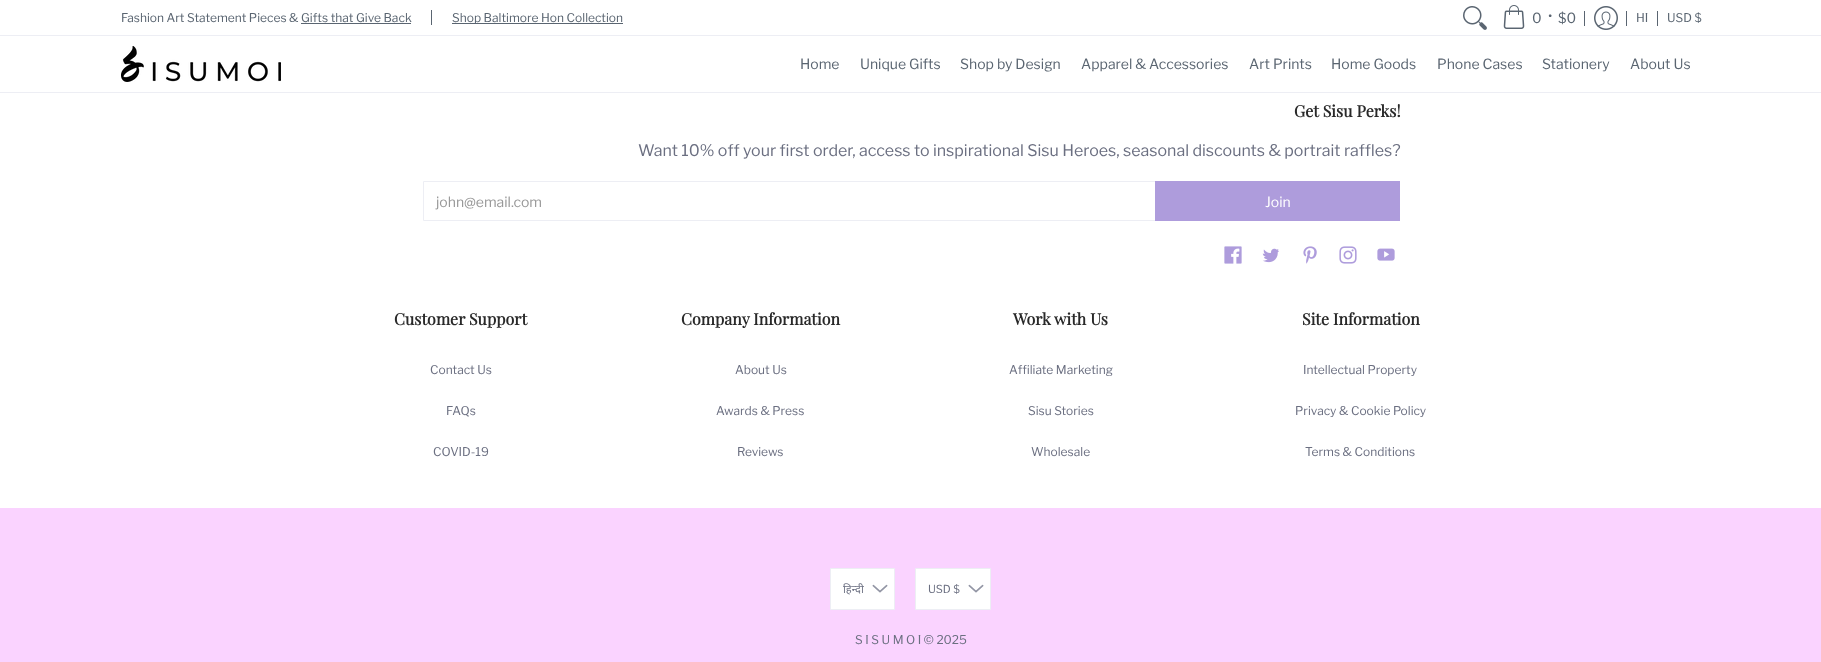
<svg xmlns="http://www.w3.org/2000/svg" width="1821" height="662">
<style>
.a{font:12px Libre Franklin;fill:#5a6571}
.b{font:14px Libre Franklin;fill:#5a6571}
.c{font:bold 16px Playfair Display;fill:#292929}
.d{font:16px Libre Franklin;fill:#6b6f81}
.e{font:14px Libre Franklin;fill:#989898}
.f{font:14px Libre Franklin;fill:#fff}
.g{font:12px Libre Franklin;fill:#6b6f81}
.h{font:11px Noto Sans;fill:#6b6f81}
.i{font:11px Libre Franklin;fill:#6b6f81}
</style>
<rect width="100%" height="100%" fill="#fff"/>
<path fill="#edeef4" d="M0 35h1821v1H0z"/>
<path fill="#5a6571" d="M301 23h110v1H301z"/>
<path fill="#5a6571" d="M431 10h1v15H431z"/>
<path fill="#5a6571" d="M452 23h171v1H452z"/>
<image href="1.png" x="1463" y="6" width="24" height="24"/>
<image href="2.png" x="1503" y="5" width="22" height="24"/>
<path fill="#5a6571" d="M1584 11h1v15H1584z"/>
<image href="3.png" x="1594" y="6" width="24" height="24"/>
<path fill="#5a6571" d="M1626 11h1v15H1626z"/>
<path fill="#5a6571" d="M1657 11h1v15H1657z"/>
<path fill="#edeef4" d="M0 92h1821v1H0z"/>
<image href="4.png" x="121" y="46" width="160" height="36"/>
<path fill="none" stroke="#edeef4" d="M423.5 181.5h733v39H423.5z"/>
<path fill="#ae9cdc" d="M1155 181h245v40H1155z"/>
<image href="5.png" x="1224" y="246" width="18" height="18"/>
<image href="6.png" x="1262" y="248" width="17" height="15"/>
<image href="7.png" x="1303" y="246" width="14" height="18"/>
<image href="8.png" x="1339" y="246" width="18" height="18"/>
<image href="9.png" x="1377" y="248" width="18" height="13"/>
<path fill="#fad3ff" d="M0 508h1821v154H0z"/>
<path fill="#fff" d="M831 569h63v40H831z"/>
<image href="10.png" x="872" y="584" width="16" height="9"/>
<path fill="none" stroke="#edeef4" d="M830.5 568.5h64v41H830.5z"/>
<path fill="#fff" d="M916 569h74v40H916z"/>
<image href="10.png" x="968" y="584" width="16" height="9"/>
<path fill="none" stroke="#edeef4" d="M915.5 568.5h75v41H915.5z"/>
<text class="a" x="121" y="22">Fashion Art Statement Pieces &amp; Gifts that Give Back</text>
<text class="a" x="452" y="22">Shop Baltimore Hon Collection</text>
<text class="b" x="1532" y="23">0</text>
<text class="b" x="1548" y="21">•</text>
<text class="b" x="1558" y="23">$0</text>
<text class="a" x="1636" y="22">HI</text>
<text class="a" x="1667" y="22">USD $</text>
<text class="b" x="800" y="69">Home</text>
<text class="b" x="860" y="69">Unique Gifts</text>
<text class="b" x="960" y="69">Shop by Design</text>
<text class="b" x="1081" y="69">Apparel &amp; Accessories</text>
<text class="b" x="1249" y="69">Art Prints</text>
<text class="b" x="1331" y="69">Home Goods</text>
<text class="b" x="1437" y="69">Phone Cases</text>
<text class="b" x="1542" y="69">Stationery</text>
<text class="b" x="1630" y="69">About Us</text>
<text class="c" x="1294" y="117">Get Sisu Perks!</text>
<text class="d" x="638" y="156">Want 10% off your first order, access to inspirational Sisu Heroes, seasonal discounts &amp; portrait raffles?</text>
<text class="e" x="436" y="207">john@email.com</text>
<text class="f" x="1265" y="207">Join</text>
<text class="c" x="394" y="325">Customer Support</text>
<text class="g" x="430" y="374">Contact Us</text>
<text class="g" x="446" y="415">FAQs</text>
<text class="g" x="433" y="456">COVID-19</text>
<text class="c" x="681" y="325">Company Information</text>
<text class="g" x="735" y="374">About Us</text>
<text class="g" x="716" y="415">Awards &amp; Press</text>
<text class="g" x="737" y="456">Reviews</text>
<text class="c" x="1013" y="325">Work with Us</text>
<text class="g" x="1009" y="374">Affiliate Marketing</text>
<text class="g" x="1028" y="415">Sisu Stories</text>
<text class="g" x="1031" y="456">Wholesale</text>
<text class="c" x="1302" y="325">Site Information</text>
<text class="g" x="1303" y="374">Intellectual Property</text>
<text class="g" x="1295" y="415">Privacy &amp; Cookie Policy</text>
<text class="g" x="1305" y="456">Terms &amp; Conditions</text>
<text class="h" x="843" y="593">हिन्दी</text>
<text class="i" x="928" y="593">USD $</text>
<text class="g" x="855" y="644">S I S U M O I © 2025</text>
</svg>
